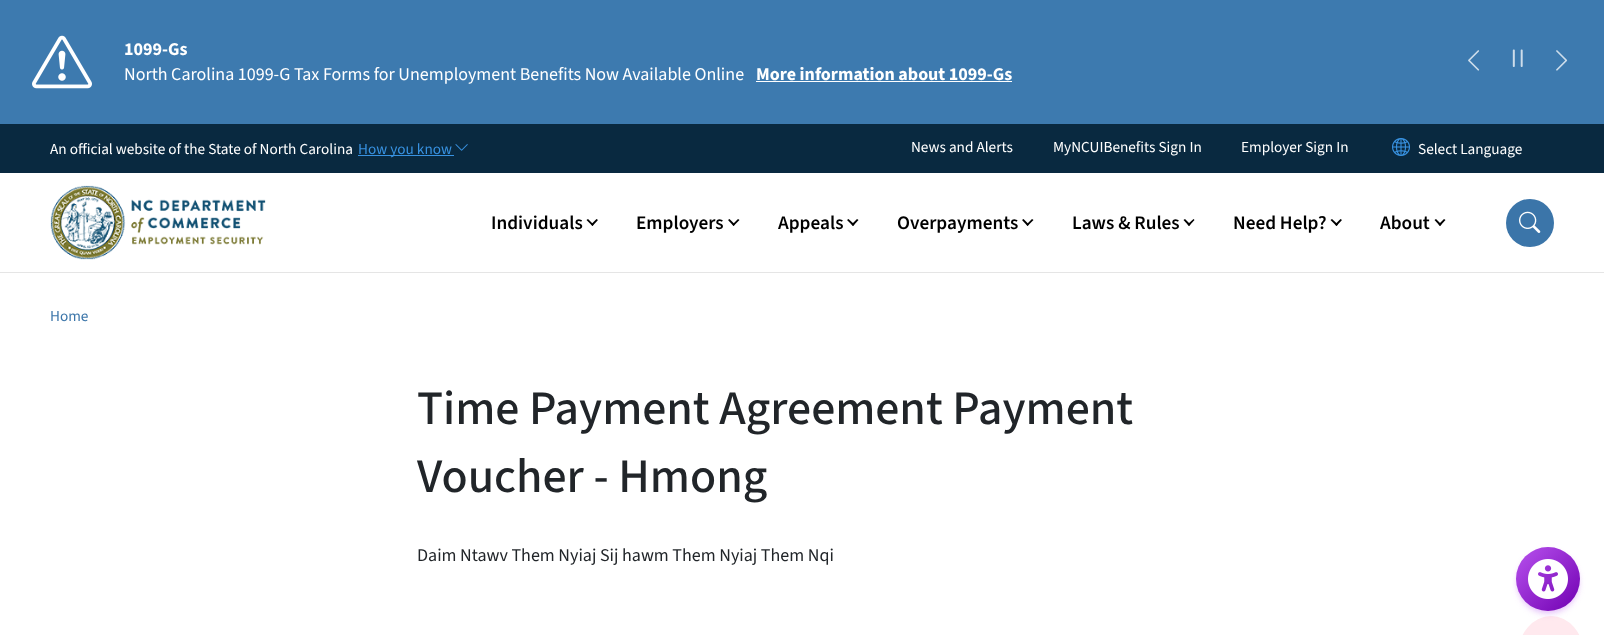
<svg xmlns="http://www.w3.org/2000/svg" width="1604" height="635">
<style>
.a{font:bold 18px 'Source Sans 3';fill:#fff}
.b{font:18px 'Source Sans 3';fill:#fff}
.c{font:15.25px 'Source Sans 3';fill:#fff}
.d{font:15.25px 'Source Sans 3';fill:#3892e1}
.e{font:600 19.25px 'Source Sans 3';fill:#000}
.f{font:15.25px 'Source Sans 3';fill:#3b75a9}
.g{font:500 48px 'Source Sans 3';fill:#212529}
.h{font:18px 'Source Sans 3';fill:#212529}
</style>
<defs>
<linearGradient id="g1" gradientUnits="userSpaceOnUse" x1="1516" y1="547" x2="1580" y2="611"><stop offset="0" stop-color="#b852ee"/><stop offset="1" stop-color="#7000b1"/></linearGradient>
</defs>
<rect width="100%" height="100%" fill="#fff"/>
<path fill="#e5e5e5" d="M0 272h1604v1H0z"/>
<path fill="#3d7aaf" d="M0 0h1604v124H0z"/>
<image href="1.png" x="32" y="35" width="60" height="54"/>
<path fill="#fff" d="M756 81h256v1H756z"/>
<image href="2.png" x="1468" y="50" width="12" height="21"/>
<image href="3.png" x="1512" y="49" width="11" height="18"/>
<image href="4.png" x="1556" y="50" width="12" height="21"/>
<path fill="#092940" d="M0 124h1604v49H0z"/>
<path fill="#3892e1" d="M358 155h96v1H358z"/>
<image href="5.png" x="455" y="144" width="13" height="7"/>
<image href="6.png" x="1392" y="138" width="18" height="18"/>
<image href="7.png" x="50" y="185" width="216" height="75"/>
<path fill="#000" d="M596.5 219l1.5 1l-5.5 6l-1.5-1.5z"/>
<path fill="#000" d="M588 219l5.5 5.5l-1 1.5l-6-6z"/>
<path fill="#000" d="M738 219l1.5 1l-6 6l-1-1.5z"/>
<path fill="#000" d="M729.5 219l5.5 5.5l-1.5 1.5l-5.5-6z"/>
<path fill="#000" d="M857 219l1.5 1l-5.5 6l-1.5-1.5z"/>
<path fill="#000" d="M848.5 219l6 5.5l-1.5 1.5l-6-6z"/>
<path fill="#000" d="M1032 219l1.5 1l-6 6l-1-1.5z"/>
<path fill="#000" d="M1023.5 219l5.5 5.5l-1.5 1.5l-5.5-6z"/>
<path fill="#000" d="M1193.5 219l1 1l-5.5 6l-1.5-1.5z"/>
<path fill="#000" d="M1185 219l5.5 5.5l-1.5 1.5l-5.5-6z"/>
<path fill="#000" d="M1340.5 219l1.5 1l-5.5 6l-1.5-1.5z"/>
<path fill="#000" d="M1332 219l6 5.5l-1.5 1.5l-6-6z"/>
<path fill="#000" d="M1444 219l1.5 1l-5.5 6l-1.5-1.5z"/>
<path fill="#000" d="M1436 219l5.5 5.5l-1.5 1.5l-5.5-6z"/>
<circle fill="#3b75a9" cx="1530" cy="223" r="24"/>
<image href="8.png" x="1519" y="211" width="22" height="22"/>
<ellipse fill="#ffe9ee" cx="1551" cy="655" rx="33" ry="39"/>
<rect fill="#b852ee26" filter="blur(2px)" x="1517" y="550" width="62" height="62" rx="31"/>
<rect fill="#b852ee40" filter="blur(3px)" x="1517" y="552" width="62" height="62" rx="31"/>
<circle fill="url(#g1)" cx="1548" cy="579" r="32"/>
<image href="9.png" x="1528" y="559" width="40" height="40"/>
<text class="a" x="124" y="55">1099-Gs</text>
<text class="b" x="124" y="80">North Carolina 1099-G Tax Forms for Unemployment Benefits Now Available Online</text>
<text class="a" x="756" y="80">More information about 1099-Gs</text>
<text class="c" x="50" y="154">An official website of the State of North Carolina</text>
<text class="d" x="358" y="154">How you know</text>
<text class="c" x="911" y="152">News and Alerts</text>
<text class="c" x="1053" y="152">MyNCUIBenefits Sign In</text>
<text class="c" x="1241" y="152">Employer Sign In</text>
<text class="c" x="1418" y="154">Select Language</text>
<text class="e" x="491" y="229">Individuals</text>
<text class="e" x="636" y="229">Employers</text>
<text class="e" x="778" y="229">Appeals</text>
<text class="e" x="897" y="229">Overpayments</text>
<text class="e" x="1072" y="229">Laws &amp; Rules</text>
<text class="e" x="1233" y="229">Need Help?</text>
<text class="e" x="1380" y="229">About</text>
<text class="f" x="50" y="321">Home</text>
<text class="g" x="417" y="424">Time Payment Agreement Payment</text>
<text class="g" x="417" y="492">Voucher - Hmong</text>
<text class="h" x="417" y="561">Daim Ntawv Them Nyiaj Sij hawm Them Nyiaj Them Nqi</text>
</svg>
